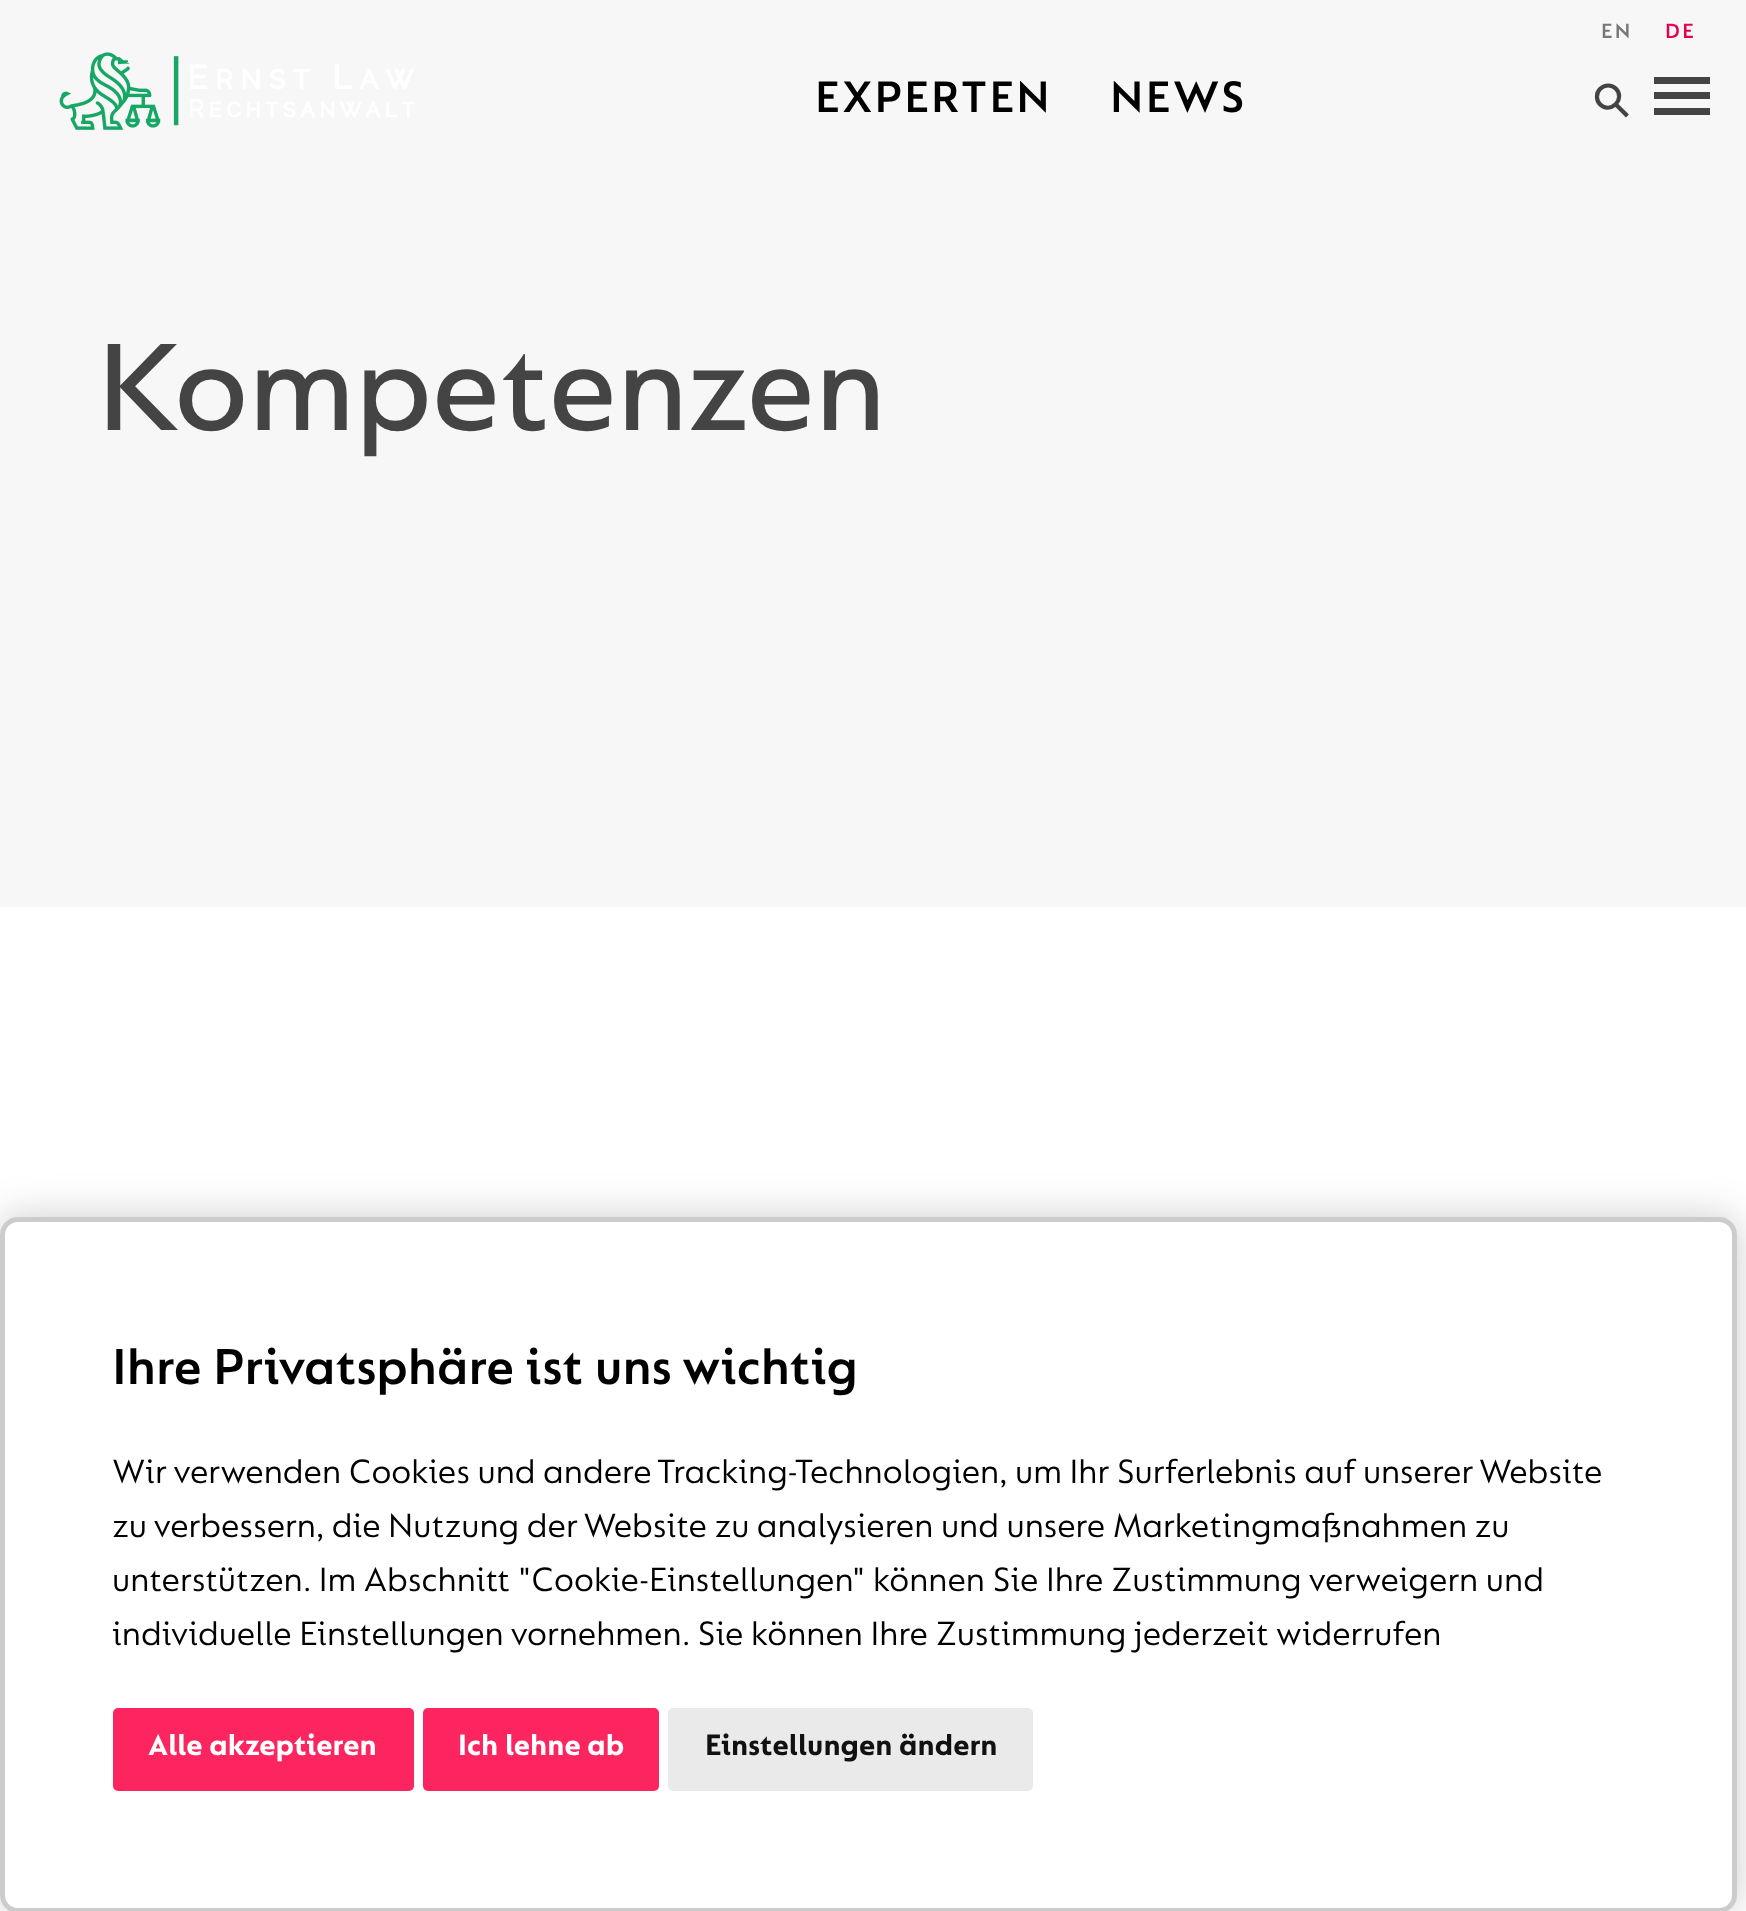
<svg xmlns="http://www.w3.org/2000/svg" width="1746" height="1911">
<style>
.a{font:600 47.25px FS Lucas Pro;letter-spacing:2.25px;fill:#000}
.b{font:600 22px FS Lucas Pro;letter-spacing:2.25px;fill:#74777b}
.c{font:600 22px FS Lucas Pro;letter-spacing:2.25px;fill:#e7004c}
.d{font:47.25px DejaVu Sans;fill:#444}
.e{font:500 132.75px FS Lucas Pro;fill:#444}
.f{font:600 54px FS Lucas Pro;fill:#000}
.g{font:36px FS Lucas Pro;fill:#000}
.h{font:bold 31.5px FS Lucas Pro;fill:#fff}
.i{font:bold 31.5px FS Lucas Pro;fill:#111}
</style>
<rect width="100%" height="100%" fill="#fff"/>
<path fill="#f7f7f7" d="M0 0h1746v907H0z"/>
<image href="1.png" x="59" y="52" width="356" height="78"/>
<path fill="#444" d="M1654 77h56v7H1654z"/>
<path fill="#444" d="M1654 92h56v7H1654z"/>
<path fill="#444" d="M1654 108h56v7H1654z"/>
<rect fill="#00000033" filter="blur(20px)" y="1217" width="1737" height="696" rx="18"/>
<rect fill="#fff" y="1217" width="1737" height="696" rx="18"/>
<rect fill="none" stroke="#00000033" stroke-width="5" x="2.5" y="1219.5" width="1732" height="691" rx="15.5"/>
<rect fill="#fd255f" x="113" y="1708" width="301" height="83" rx="5"/>
<rect fill="#fd255f" x="423" y="1708" width="236" height="83" rx="5"/>
<rect fill="#eaeaea" x="668" y="1708" width="365" height="83" rx="5"/>
<text class="a" x="815" y="112">EXPERTEN</text>
<text class="a" x="1110" y="112">NEWS</text>
<text class="b" x="1601" y="38">EN</text>
<text class="c" x="1665" y="38">DE</text>
<text class="d" x="1611" y="124" transform="rotate(-45 1611 124)">⚲</text>
<text class="e" x="97" y="430">Kompetenzen</text>
<text class="f" x="112" y="1384">Ihre Privatsphäre ist uns wichtig</text>
<text class="g" x="112" y="1483">Wir verwenden Cookies und andere Tracking-Technologien, um Ihr Surferlebnis auf unserer Website</text>
<text class="g" x="112" y="1537">zu verbessern, die Nutzung der Website zu analysieren und unsere Marketingmaßnahmen zu</text>
<text class="g" x="112" y="1591">unterstützen. Im Abschnitt "Cookie-Einstellungen" können Sie Ihre Zustimmung verweigern und</text>
<text class="g" x="112" y="1645">individuelle Einstellungen vornehmen. Sie können Ihre Zustimmung jederzeit widerrufen</text>
<text class="h" x="148" y="1755">Alle akzeptieren</text>
<text class="h" x="458" y="1755">Ich lehne ab</text>
<text class="i" x="705" y="1755">Einstellungen ändern</text>
</svg>
